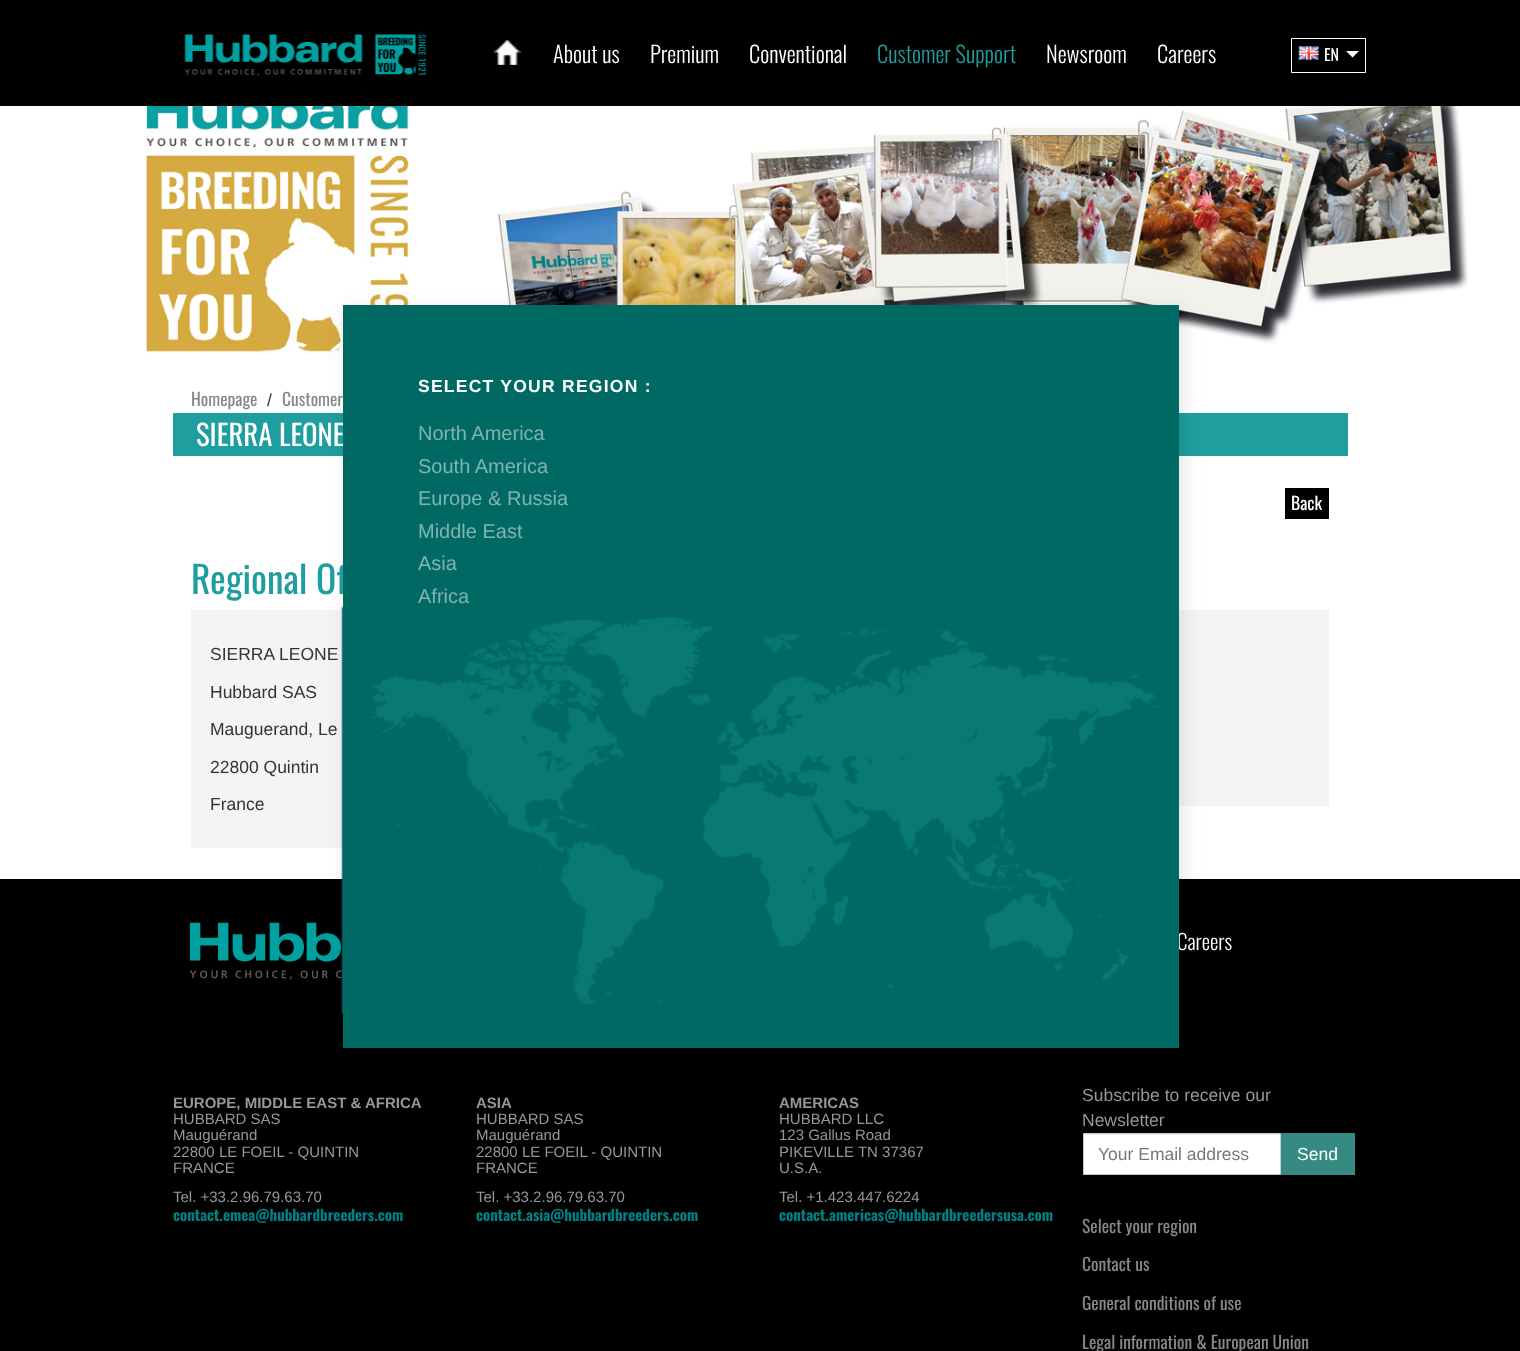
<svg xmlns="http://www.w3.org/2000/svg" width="1520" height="1351">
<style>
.a{font:300 22.5px Oswald;fill:#fff}
.b{font:300 22.5px Oswald;fill:#1f9e9f}
.c{font:16px Oswald;fill:#fff}
.d{font:300 21px Oswald;fill:#fff}
.e{font:bold 15px Liberation Sans;fill:#969799}
.f{font:15px Liberation Sans;fill:#969799}
.g{font:bold 15px Oswald;fill:#008080}
.h{font:17.5px Liberation Sans;fill:#969799}
.i{font:17.5px Liberation Sans;fill:#777}
.j{font:17.5px Liberation Sans;fill:#fff}
.k{font:17.5px Oswald;fill:#888}
.l{font:17.5px Liberation Sans;fill:#333}
.m{font:28.75px Oswald;fill:#fff}
.n{font:17.5px Oswald;fill:#fff}
.o{font:37.5px Oswald;fill:#1f9e9f}
.p{font:bold 17.5px Liberation Sans;letter-spacing:1.25px;fill:#fff}
.q{font:20px Liberation Sans;fill:#80b4b1}
</style>
<rect width="100%" height="100%" fill="#fff"/>
<path fill="#000" d="M0 0h1520v106H0z"/>
<image href="1.png" x="184" y="34" width="243" height="42"/>
<image href="2.png" x="493" y="40" width="29" height="25"/>
<path fill="none" stroke="#fff" d="M1291.5 38.5h74v34H1291.5z"/>
<image href="3.png" x="1298" y="46" width="21" height="14"/>
<path fill="#fff" d="M1346 51h13l-6.5 6.5z"/>
<image href="4.png" x="146" y="106" width="1322" height="297"/>
<path fill="#000" d="M0 879h1520v472H0z"/>
<image href="6.png" x="189" y="922" width="154" height="58"/>
<path fill="#1f9e9f" d="M173 413h1175v43H173z"/>
<path fill="#f4f4f4" d="M191 610h152v238H191z"/>
<path fill="#f4f4f4" d="M1179 610h150v196H1179z"/>
<path fill="#0000001a" filter="blur(9.5px)" d="M346 309h837v742H346z"/>
<path fill="#fff" d="M1084 1135h196v39H1084z"/>
<path fill="#ececec" d="M1084 1134h196v1H1084z"/>
<path fill="none" stroke="#ccc" d="M1083.5 1133.5h197v41H1083.5z"/>
<path fill="#368a82" d="M1281 1133h74v42H1281z"/>
<path fill="#000" d="M1285 488h44v31H1285z"/>
<text class="a" x="553" y="63">About us</text>
<text class="a" x="650" y="63">Premium</text>
<text class="a" x="749" y="63">Conventional</text>
<text class="b" x="877" y="63">Customer Support</text>
<text class="a" x="1046" y="63">Newsroom</text>
<text class="a" x="1157" y="63">Careers</text>
<text class="c" x="1324" y="61">EN</text>
<text class="d" x="1177" y="950">Careers</text>
<text class="e" x="173" y="1108">EUROPE, MIDDLE EAST &amp; AFRICA</text>
<text class="f" x="173" y="1124">HUBBARD SAS</text>
<text class="f" x="173" y="1140">Mauguérand</text>
<text class="f" x="173" y="1157">22800 LE FOEIL - QUINTIN</text>
<text class="f" x="173" y="1173">FRANCE</text>
<text class="f" x="173" y="1202">Tel. +33.2.96.79.63.70</text>
<text class="g" x="173" y="1221">contact.emea@hubbardbreeders.com</text>
<text class="e" x="476" y="1108">ASIA</text>
<text class="f" x="476" y="1124">HUBBARD SAS</text>
<text class="f" x="476" y="1140">Mauguérand</text>
<text class="f" x="476" y="1157">22800 LE FOEIL - QUINTIN</text>
<text class="f" x="476" y="1173">FRANCE</text>
<text class="f" x="476" y="1202">Tel. +33.2.96.79.63.70</text>
<text class="g" x="476" y="1221">contact.asia@hubbardbreeders.com</text>
<text class="e" x="779" y="1108">AMERICAS</text>
<text class="f" x="779" y="1124">HUBBARD LLC</text>
<text class="f" x="779" y="1140">123 Gallus Road</text>
<text class="f" x="779" y="1157">PIKEVILLE TN 37367</text>
<text class="f" x="779" y="1173">U.S.A.</text>
<text class="f" x="779" y="1202">Tel. +1.423.447.6224</text>
<text class="g" x="779" y="1221">contact.americas@hubbardbreedersusa.com</text>
<text class="h" x="1082" y="1101">Subscribe to receive our</text>
<text class="h" x="1082" y="1126">Newsletter</text>
<text class="i" x="1098" y="1160">Your Email address</text>
<text class="j" x="1297" y="1160">Send</text>
<text class="k" x="1082" y="1233">Select your region</text>
<text class="k" x="1082" y="1271">Contact us</text>
<text class="k" x="1082" y="1310">General conditions of use</text>
<text class="k" x="1082" y="1349">Legal information &amp; European Union</text>
<text class="k" x="191" y="406">Homepage</text>
<text class="l" x="267" y="406">/</text>
<text class="k" x="282" y="406">Customer</text>
<text class="m" x="196" y="446">SIERRA LEONE</text>
<text class="n" x="1291" y="510">Back</text>
<text class="o" x="191" y="594">Regional Of</text>
<path fill="#006963" d="M343 305h836v743H343z"/>
<text class="p" x="418" y="392">SELECT YOUR REGION :</text>
<text class="q" x="418" y="603">Africa</text>
<text class="q" x="418" y="570">Asia</text>
<text class="q" x="418" y="538">Middle East</text>
<text class="q" x="418" y="505">Europe &amp; Russia</text>
<text class="q" x="418" y="473">South America</text>
<text class="q" x="418" y="440">North America</text>
<image href="5.png" x="341" y="606" width="817" height="408"/>
<text class="l" x="210" y="660">SIERRA LEONE</text>
<text class="l" x="210" y="698">Hubbard SAS</text>
<text class="l" x="210" y="735">Mauguerand, Le</text>
<text class="l" x="210" y="773">22800 Quintin</text>
<text class="l" x="210" y="810">France</text>
</svg>
